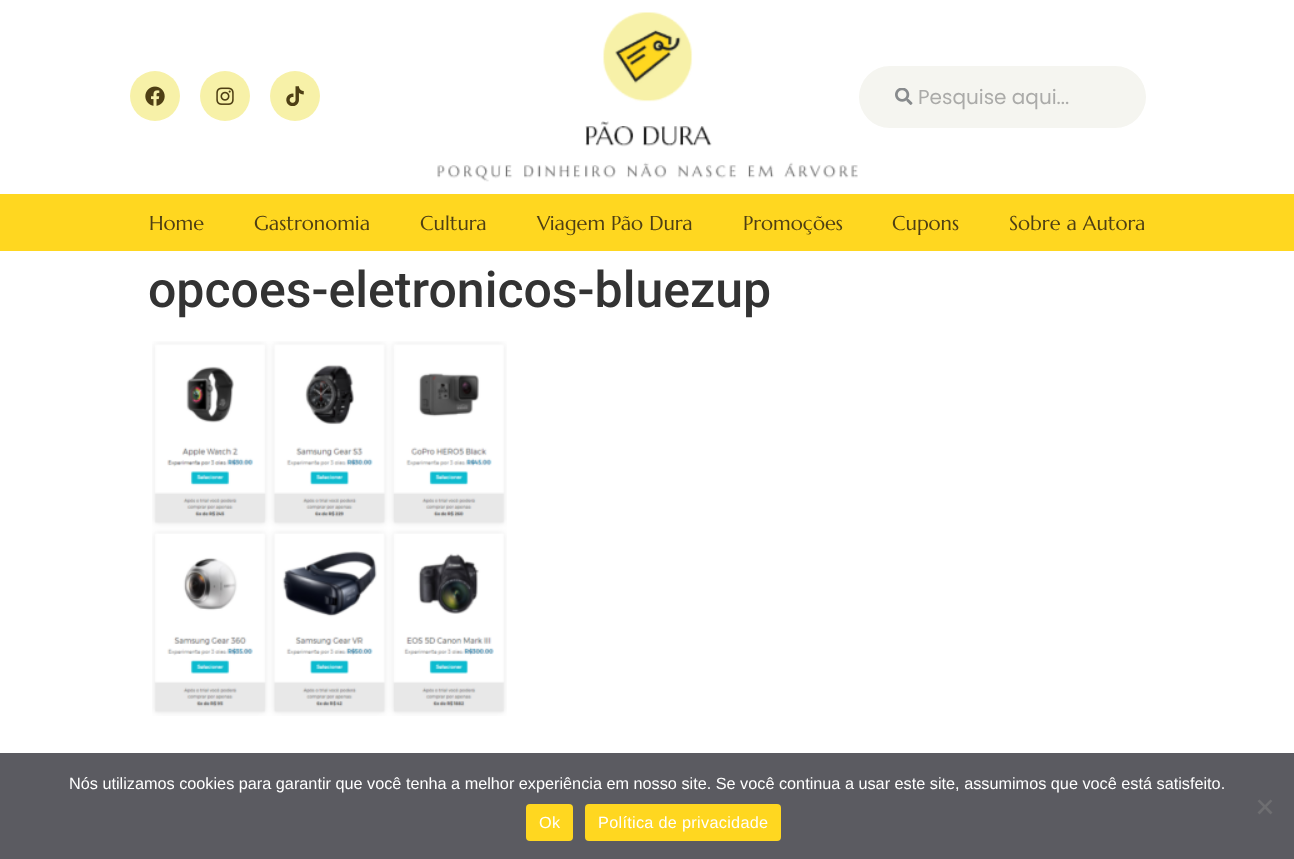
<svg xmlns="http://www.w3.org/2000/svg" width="1294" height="859">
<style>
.a{font:20px Poppins;fill:#ababa9}
.b{font:20px Marcellus;fill:#4e3f14}
.c{font:500 50px Roboto;fill:#333}
.d{font:16.25px Liberation Sans;fill:#fff}
.e{font:16.25px Liberation Sans;letter-spacing:0.3px;fill:#fff}
</style>
<rect width="100%" height="100%" fill="#fff"/>
<circle fill="#f7f1a8" cx="155" cy="96" r="25"/>
<image href="1.png" x="145" y="86" width="20" height="20"/>
<circle fill="#f7f1a8" cx="225" cy="96" r="25"/>
<image href="2.png" x="216" y="87" width="18" height="18"/>
<circle fill="#f7f1a8" cx="295" cy="96" r="25"/>
<image href="3.png" x="286" y="86" width="18" height="20"/>
<image href="4.png" x="437" y="12" width="421" height="170"/>
<rect fill="#f5f5f0" x="859" y="66" width="287" height="62" rx="31"/>
<image href="5.png" x="895" y="88" width="18" height="17"/>
<path fill="#ffd720" d="M0 194h1294v57H0z"/>
<image href="6.png" x="152" y="341" width="355" height="375"/>
<path fill="#32323acc" d="M0 753h1294v106H0z"/>
<path fill="#6e6e71" d="M1270.5 799.5l2 1.5l-13 13.5l-2-2z"/>
<path fill="#6e6e71" d="M1257.5 801l2-1.5l13 13l-2 2z"/>
<rect fill="#ffd720" x="526" y="804" width="47" height="37" rx="4"/>
<rect fill="#ffd720" x="585" y="804" width="196" height="37" rx="4"/>
<text class="a" x="918" y="104">Pesquise aqui...</text>
<text class="b" x="149" y="230">Home</text>
<text class="b" x="254" y="230">Gastronomia</text>
<text class="b" x="420" y="230">Cultura</text>
<text class="b" x="537" y="230">Viagem Pão Dura</text>
<text class="b" x="743" y="230">Promoções</text>
<text class="b" x="892" y="230">Cupons</text>
<text class="b" x="1009" y="230">Sobre a Autora</text>
<text class="c" x="148" y="307">opcoes-eletronicos-bluezup</text>
<text class="d" x="69" y="789">Nós utilizamos cookies para garantir que você tenha a melhor experiência em nosso site. Se você continua a usar este site, assumimos que você está satisfeito.</text>
<text class="e" x="539" y="828">Ok</text>
<text class="e" x="598" y="828">Política de privacidade</text>
</svg>
